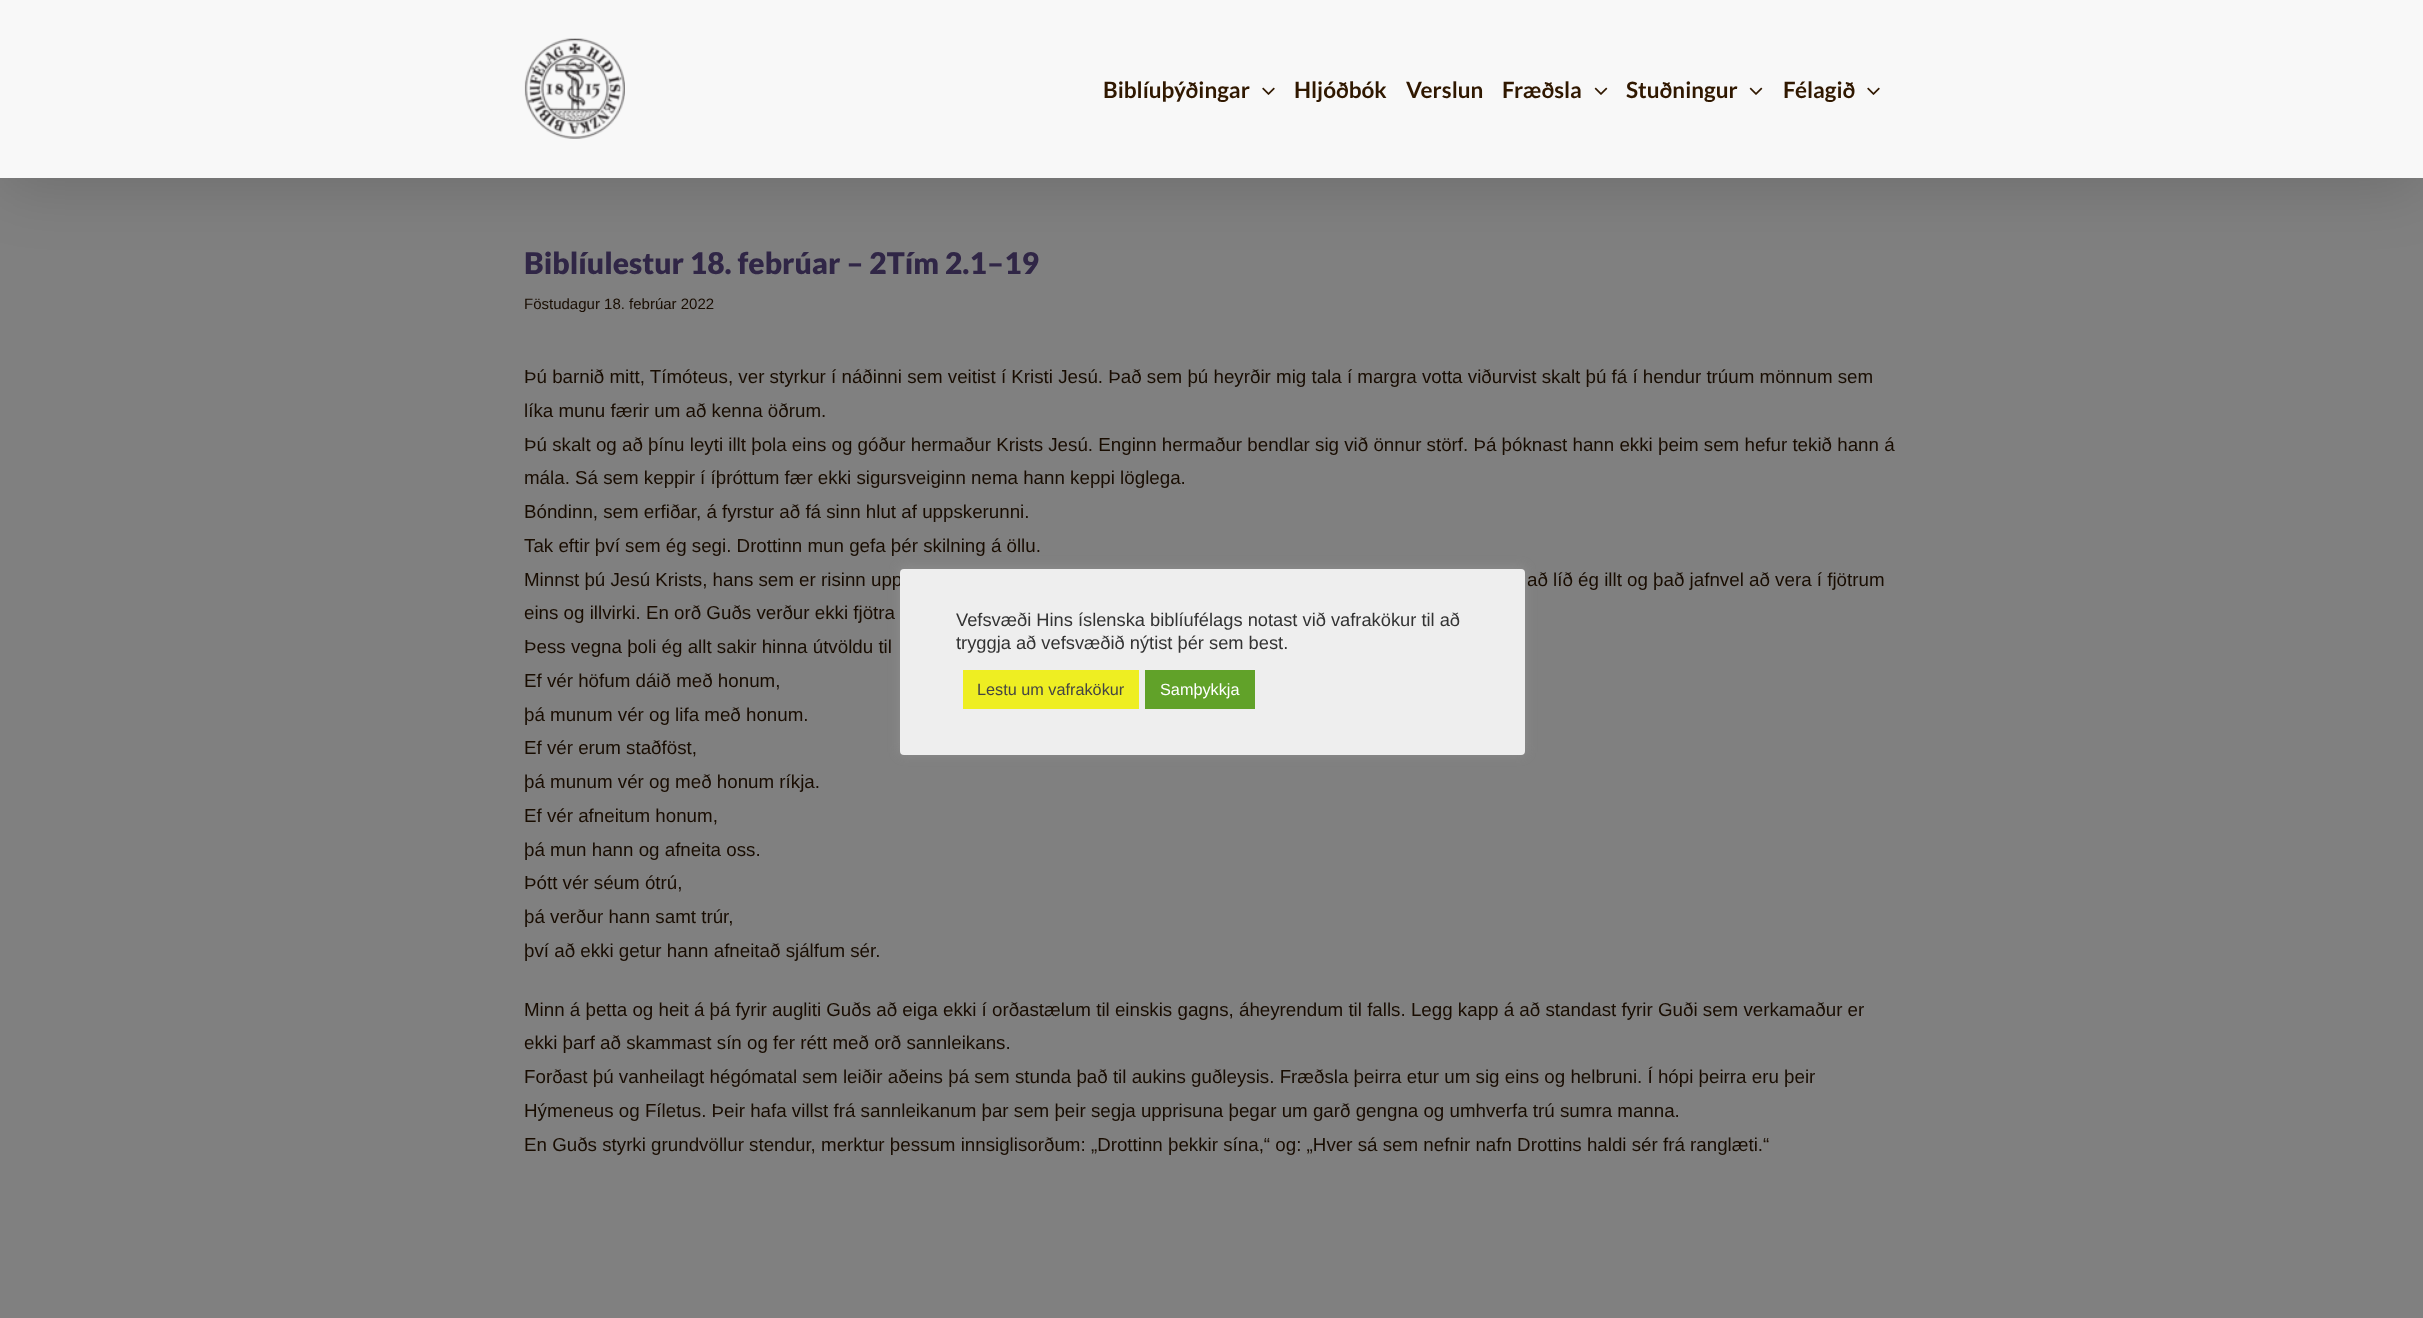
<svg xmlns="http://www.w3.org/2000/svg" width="2423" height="1318">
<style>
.a{font:bold 22.5px Lato;fill:#301800}
.b{font:900 30px Lato;fill:#302646}
.c{font:15px Liberation Sans;fill:#180c00}
.d{font:18.75px Liberation Sans;fill:#180c00}
.e{font:18.3px Liberation Sans;fill:#333}
.f{font:16.25px Liberation Sans;fill:#444}
.g{font:16.25px Liberation Sans;fill:#fff}
</style>
<rect width="100%" height="100%" fill="#808080"/>
<path fill="#00000024" filter="blur(31px)" d="M3 15h2418v173H3z"/>
<path fill="#f8f8f8" d="M0 0h2423v178H0z"/>
<image href="1.png" x="524" y="38" width="101" height="101"/>
<image href="2.png" x="1262" y="87" width="13" height="8"/>
<image href="3.png" x="1594" y="87" width="14" height="8"/>
<image href="3.png" x="1749" y="87" width="14" height="8"/>
<image href="2.png" x="1867" y="87" width="13" height="8"/>
<rect fill="#acabab4d" filter="blur(6px)" x="900" y="568" width="625" height="186" rx="4"/>
<text class="a" x="1103" y="98">Biblíuþýðingar</text>
<text class="a" x="1294" y="98">Hljóðbók</text>
<text class="a" x="1406" y="98">Verslun</text>
<text class="a" x="1502" y="98">Fræðsla</text>
<text class="a" x="1626" y="98">Stuðningur</text>
<text class="a" x="1783" y="98">Félagið</text>
<text class="b" x="524" y="274">Biblíulestur 18. febrúar – 2Tím 2.1–19</text>
<text class="c" x="524" y="309">Föstudagur 18. febrúar 2022</text>
<text class="d" x="524" y="383">Þú barnið mitt, Tímóteus, ver styrkur í náðinni sem veitist í Kristi Jesú. Það sem þú heyrðir mig tala í margra votta viðurvist skalt þú fá í hendur trúum mönnum sem</text>
<text class="d" x="524" y="417">líka munu færir um að kenna öðrum.</text>
<text class="d" x="524" y="451">Þú skalt og að þínu leyti illt þola eins og góður hermaður Krists Jesú. Enginn hermaður bendlar sig við önnur störf. Þá þóknast hann ekki þeim sem hefur tekið hann á</text>
<text class="d" x="524" y="484">mála. Sá sem keppir í íþróttum fær ekki sigursveiginn nema hann keppi löglega.</text>
<text class="d" x="524" y="518">Bóndinn, sem erfiðar, á fyrstur að fá sinn hlut af uppskerunni.</text>
<text class="d" x="524" y="552">Tak eftir því sem ég segi. Drottinn mun gefa þér skilning á öllu.</text>
<text class="d" x="524" y="586">Minnst þú Jesú Krists, hans sem er risinn upp</text>
<text class="d" x="1527" y="586">að líð ég illt og það jafnvel að vera í fjötrum</text>
<text class="d" x="524" y="619">eins og illvirki. En orð Guðs verður ekki fjötra</text>
<text class="d" x="524" y="653">Þess vegna þoli ég allt sakir hinna útvöldu til</text>
<text class="d" x="524" y="687">Ef vér höfum dáið með honum,</text>
<text class="d" x="524" y="721">þá munum vér og lifa með honum.</text>
<text class="d" x="524" y="754">Ef vér erum staðföst,</text>
<text class="d" x="524" y="788">þá munum vér og með honum ríkja.</text>
<text class="d" x="524" y="822">Ef vér afneitum honum,</text>
<text class="d" x="524" y="856">þá mun hann og afneita oss.</text>
<text class="d" x="524" y="889">Þótt vér séum ótrú,</text>
<text class="d" x="524" y="923">þá verður hann samt trúr,</text>
<text class="d" x="524" y="957">því að ekki getur hann afneitað sjálfum sér.</text>
<text class="d" x="524" y="1016">Minn á þetta og heit á þá fyrir augliti Guðs að eiga ekki í orðastælum til einskis gagns, áheyrendum til falls. Legg kapp á að standast fyrir Guði sem verkamaður er</text>
<text class="d" x="524" y="1049">ekki þarf að skammast sín og fer rétt með orð sannleikans.</text>
<text class="d" x="524" y="1083">Forðast þú vanheilagt hégómatal sem leiðir aðeins þá sem stunda það til aukins guðleysis. Fræðsla þeirra etur um sig eins og helbruni. Í hópi þeirra eru þeir</text>
<text class="d" x="524" y="1117">Hýmeneus og Fíletus. Þeir hafa villst frá sannleikanum þar sem þeir segja upprisuna þegar um garð gengna og umhverfa trú sumra manna.</text>
<text class="d" x="524" y="1151">En Guðs styrki grundvöllur stendur, merktur þessum innsiglisorðum: „Drottinn þekkir sína,“ og: „Hver sá sem nefnir nafn Drottins haldi sér frá ranglæti.“</text>
<rect fill="#eee" x="900" y="569" width="625" height="186" rx="4"/>
<text class="e" x="956" y="626">Vefsvæði Hins íslenska biblíufélags notast við vafrakökur til að</text>
<text class="e" x="956" y="649">tryggja að vefsvæðið nýtist þér sem best.</text>
<path fill="#ee2" d="M963 670h176v39H963z"/>
<text class="f" x="977" y="695">Lestu um vafrakökur</text>
<path fill="#61a229" d="M1145 670h110v39H1145z"/>
<text class="g" x="1160" y="695">Samþykkja</text>
</svg>
